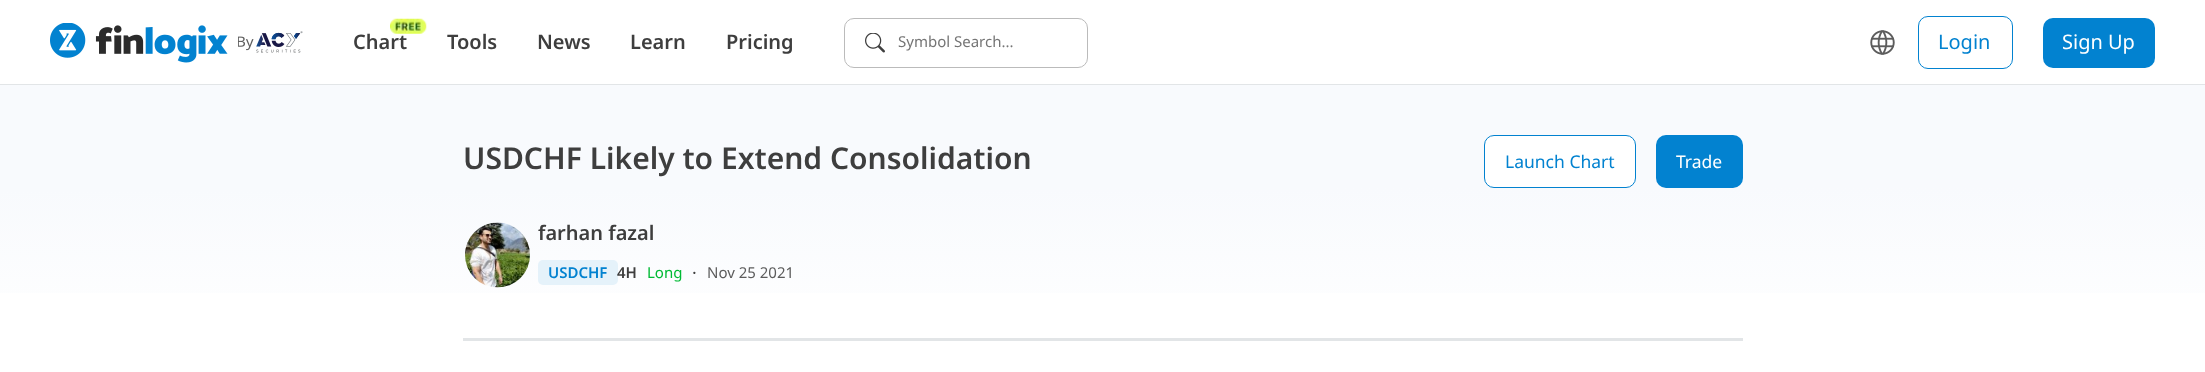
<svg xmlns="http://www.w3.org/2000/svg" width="2205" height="372">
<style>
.a{font:600 20px Noto Sans;fill:#3e3e3e}
.b{font:15px Noto Sans;fill:#757575}
.c{font:20px Noto Sans;fill:#0282d0}
.d{font:20px Noto Sans;fill:#fff}
.e{font:600 30px Noto Sans;fill:#3e3e3e}
.f{font:17.5px Noto Sans;fill:#0282d0}
.g{font:17.5px Noto Sans;fill:#fff}
.h{font:600 15px Noto Sans;fill:#0282d0}
.i{font:600 15px Noto Sans;fill:#3e3e3e}
.j{font:15px Noto Sans;fill:#00ba34}
.k{font:17.5px Noto Sans;fill:#3e3e3e}
.l{font:15px Noto Sans;fill:#5c5c5c}
</style>
<defs>
<linearGradient id="g1" gradientUnits="userSpaceOnUse" x1="1102" y1="85" x2="1103" y2="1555"><stop offset="0.07" stop-color="#f8fafd"/><stop offset="0.18" stop-color="#fff"/></linearGradient>
</defs>
<rect width="100%" height="100%" fill="#fff"/>
<path fill="#e2e5e7" d="M0 84h2205v1H0z"/>
<image href="1.png" x="50" y="23" width="178" height="40"/>
<image href="2.png" x="238" y="31" width="65" height="22"/>
<rect fill="none" stroke="#bbb" x="844.5" y="18.5" width="243" height="49" rx="9.5"/>
<image href="4.png" x="865" y="33" width="20" height="20"/>
<image href="5.png" x="1870" y="30" width="25" height="25"/>
<rect fill="none" stroke="#0282d0" x="1918.5" y="16.5" width="94" height="52" rx="9.5"/>
<rect fill="#0282d0" x="2043" y="18" width="112" height="50" rx="10"/>
<path fill="url(#g1)" d="M0 85h2205v208H0z"/>
<rect fill="#fff" stroke="#0282d0" x="1484.5" y="135.5" width="151" height="52" rx="9.5"/>
<rect fill="#0282d0" x="1656" y="135" width="87" height="53" rx="10"/>
<image href="6.png" x="465" y="222" width="65" height="66"/>
<rect fill="#e5f2fa" x="538" y="260" width="80" height="25" rx="5"/>
<path fill="#e2e5e7" d="M463 338h1280v3H463z"/>
<text class="a" x="353" y="49">Chart</text>
<image href="3.png" x="390" y="18" width="37" height="16"/>
<text class="a" x="447" y="49">Tools</text>
<text class="a" x="537" y="49">News</text>
<text class="a" x="630" y="49">Learn</text>
<text class="a" x="726" y="49">Pricing</text>
<text class="b" x="898" y="47">Symbol Search...</text>
<text class="c" x="1938" y="49">Login</text>
<text class="d" x="2062" y="49">Sign Up</text>
<text class="e" x="463" y="169">USDCHF Likely to Extend Consolidation</text>
<text class="f" x="1505" y="168">Launch Chart</text>
<text class="g" x="1676" y="168">Trade</text>
<text class="a" x="538" y="240">farhan fazal</text>
<text class="h" x="548" y="278">USDCHF</text>
<text class="i" x="617" y="278">4H</text>
<text class="j" x="647" y="278">Long</text>
<text class="k" x="692" y="279">·</text>
<text class="l" x="707" y="278">Nov 25 2021</text>
</svg>
